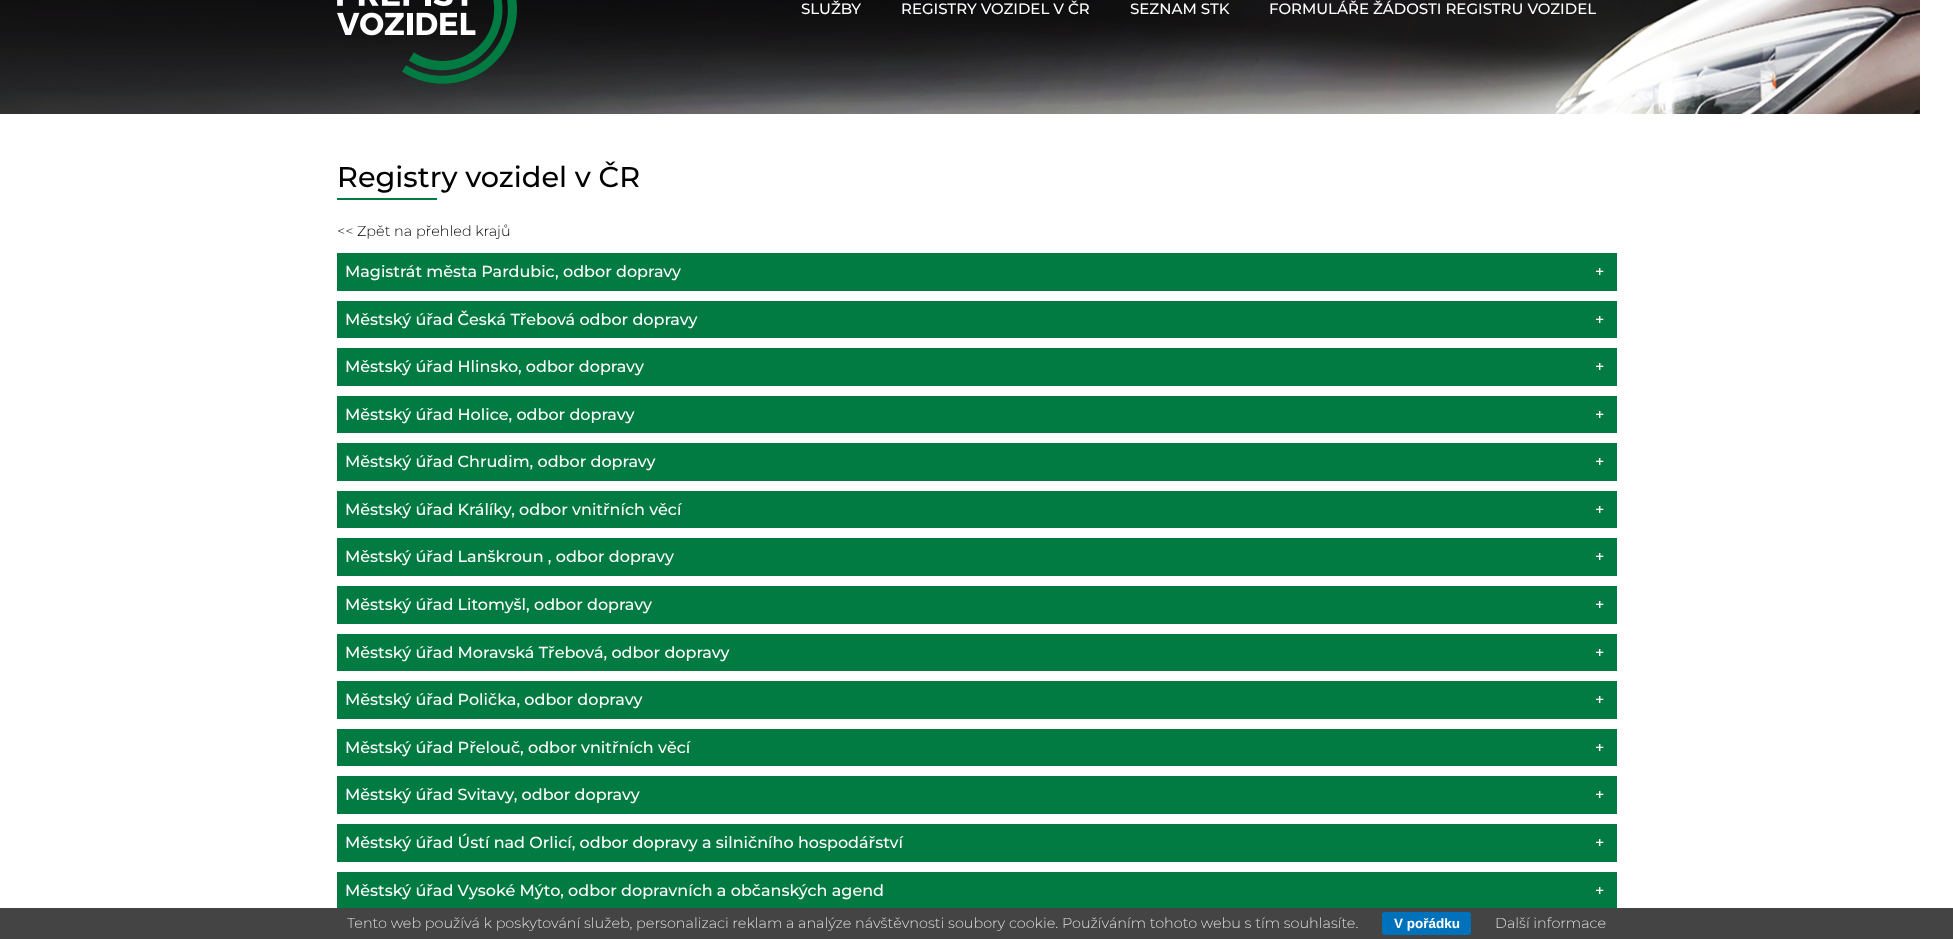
<svg xmlns="http://www.w3.org/2000/svg" width="1953" height="939">
<style>
.a{font:500 15px Montserrat;fill:#fff}
.b{font:500 28.75px Montserrat;fill:#000}
.c{font:300 14.4px Montserrat;fill:#000}
.d{font:500 16px Montserrat;fill:#fff}
.e{font:300 14.4px Montserrat;fill:#ddd}
.f{font:bold 13.5px Liberation Sans;fill:#fff}
</style>
<rect width="100%" height="100%" fill="#fff"/>
<image href="1.png" x="0" y="0" width="1920" height="114"/>
<image href="2.png" x="337" y="0" width="180" height="84"/>
<path fill="#017b41" d="M337 198h100v2H337z"/>
<path fill="#017b41" d="M337 253h1280v38H337z"/>
<path fill="#017b41" d="M337 301h1280v37H337z"/>
<path fill="#017b41" d="M337 348h1280v38H337z"/>
<path fill="#017b41" d="M337 396h1280v37H337z"/>
<path fill="#017b41" d="M337 443h1280v38H337z"/>
<path fill="#017b41" d="M337 491h1280v37H337z"/>
<path fill="#017b41" d="M337 538h1280v38H337z"/>
<path fill="#017b41" d="M337 586h1280v38H337z"/>
<path fill="#017b41" d="M337 634h1280v37H337z"/>
<path fill="#017b41" d="M337 681h1280v38H337z"/>
<path fill="#017b41" d="M337 729h1280v37H337z"/>
<path fill="#017b41" d="M337 776h1280v38H337z"/>
<path fill="#017b41" d="M337 824h1280v38H337z"/>
<path fill="#017b41" d="M337 872h1280v36H337z"/>
<path fill="#444" d="M0 908h1953v31H0z"/>
<rect fill="#0072bc" x="1382" y="912" width="89" height="23" rx="3"/>
<text class="a" x="801" y="14">SLUŽBY</text>
<text class="a" x="901" y="14">REGISTRY VOZIDEL V ČR</text>
<text class="a" x="1130" y="14">SEZNAM STK</text>
<text class="a" x="1269" y="14">FORMULÁŘE ŽÁDOSTI REGISTRU VOZIDEL</text>
<text class="b" x="337" y="187">Registry vozidel v ČR</text>
<text class="c" x="337" y="236">&lt;&lt; Zpět na přehled krajů</text>
<text class="d" x="345" y="277">Magistrát města Pardubic, odbor dopravy</text>
<text class="d" x="1595" y="277">+</text>
<text class="d" x="345" y="325">Městský úřad Česká Třebová odbor dopravy</text>
<text class="d" x="1595" y="325">+</text>
<text class="d" x="345" y="372">Městský úřad Hlinsko, odbor dopravy</text>
<text class="d" x="1595" y="372">+</text>
<text class="d" x="345" y="420">Městský úřad Holice, odbor dopravy</text>
<text class="d" x="1595" y="420">+</text>
<text class="d" x="345" y="467">Městský úřad Chrudim, odbor dopravy</text>
<text class="d" x="1595" y="467">+</text>
<text class="d" x="345" y="515">Městský úřad Králíky, odbor vnitřních věcí</text>
<text class="d" x="1595" y="515">+</text>
<text class="d" x="345" y="562">Městský úřad Lanškroun , odbor dopravy</text>
<text class="d" x="1595" y="562">+</text>
<text class="d" x="345" y="610">Městský úřad Litomyšl, odbor dopravy</text>
<text class="d" x="1595" y="610">+</text>
<text class="d" x="345" y="658">Městský úřad Moravská Třebová, odbor dopravy</text>
<text class="d" x="1595" y="658">+</text>
<text class="d" x="345" y="705">Městský úřad Polička, odbor dopravy</text>
<text class="d" x="1595" y="705">+</text>
<text class="d" x="345" y="753">Městský úřad Přelouč, odbor vnitřních věcí</text>
<text class="d" x="1595" y="753">+</text>
<text class="d" x="345" y="800">Městský úřad Svitavy, odbor dopravy</text>
<text class="d" x="1595" y="800">+</text>
<text class="d" x="345" y="848">Městský úřad Ústí nad Orlicí, odbor dopravy a silničního hospodářství</text>
<text class="d" x="1595" y="848">+</text>
<text class="d" x="345" y="896">Městský úřad Vysoké Mýto, odbor dopravních a občanských agend</text>
<text class="d" x="1595" y="896">+</text>
<text class="e" x="347" y="928">Tento web používá k poskytování služeb, personalizaci reklam a analýze návštěvnosti soubory cookie. Používáním tohoto webu s tím souhlasíte.</text>
<text class="f" x="1394" y="928">V pořádku</text>
<text class="e" x="1495" y="928">Další informace</text>
</svg>
